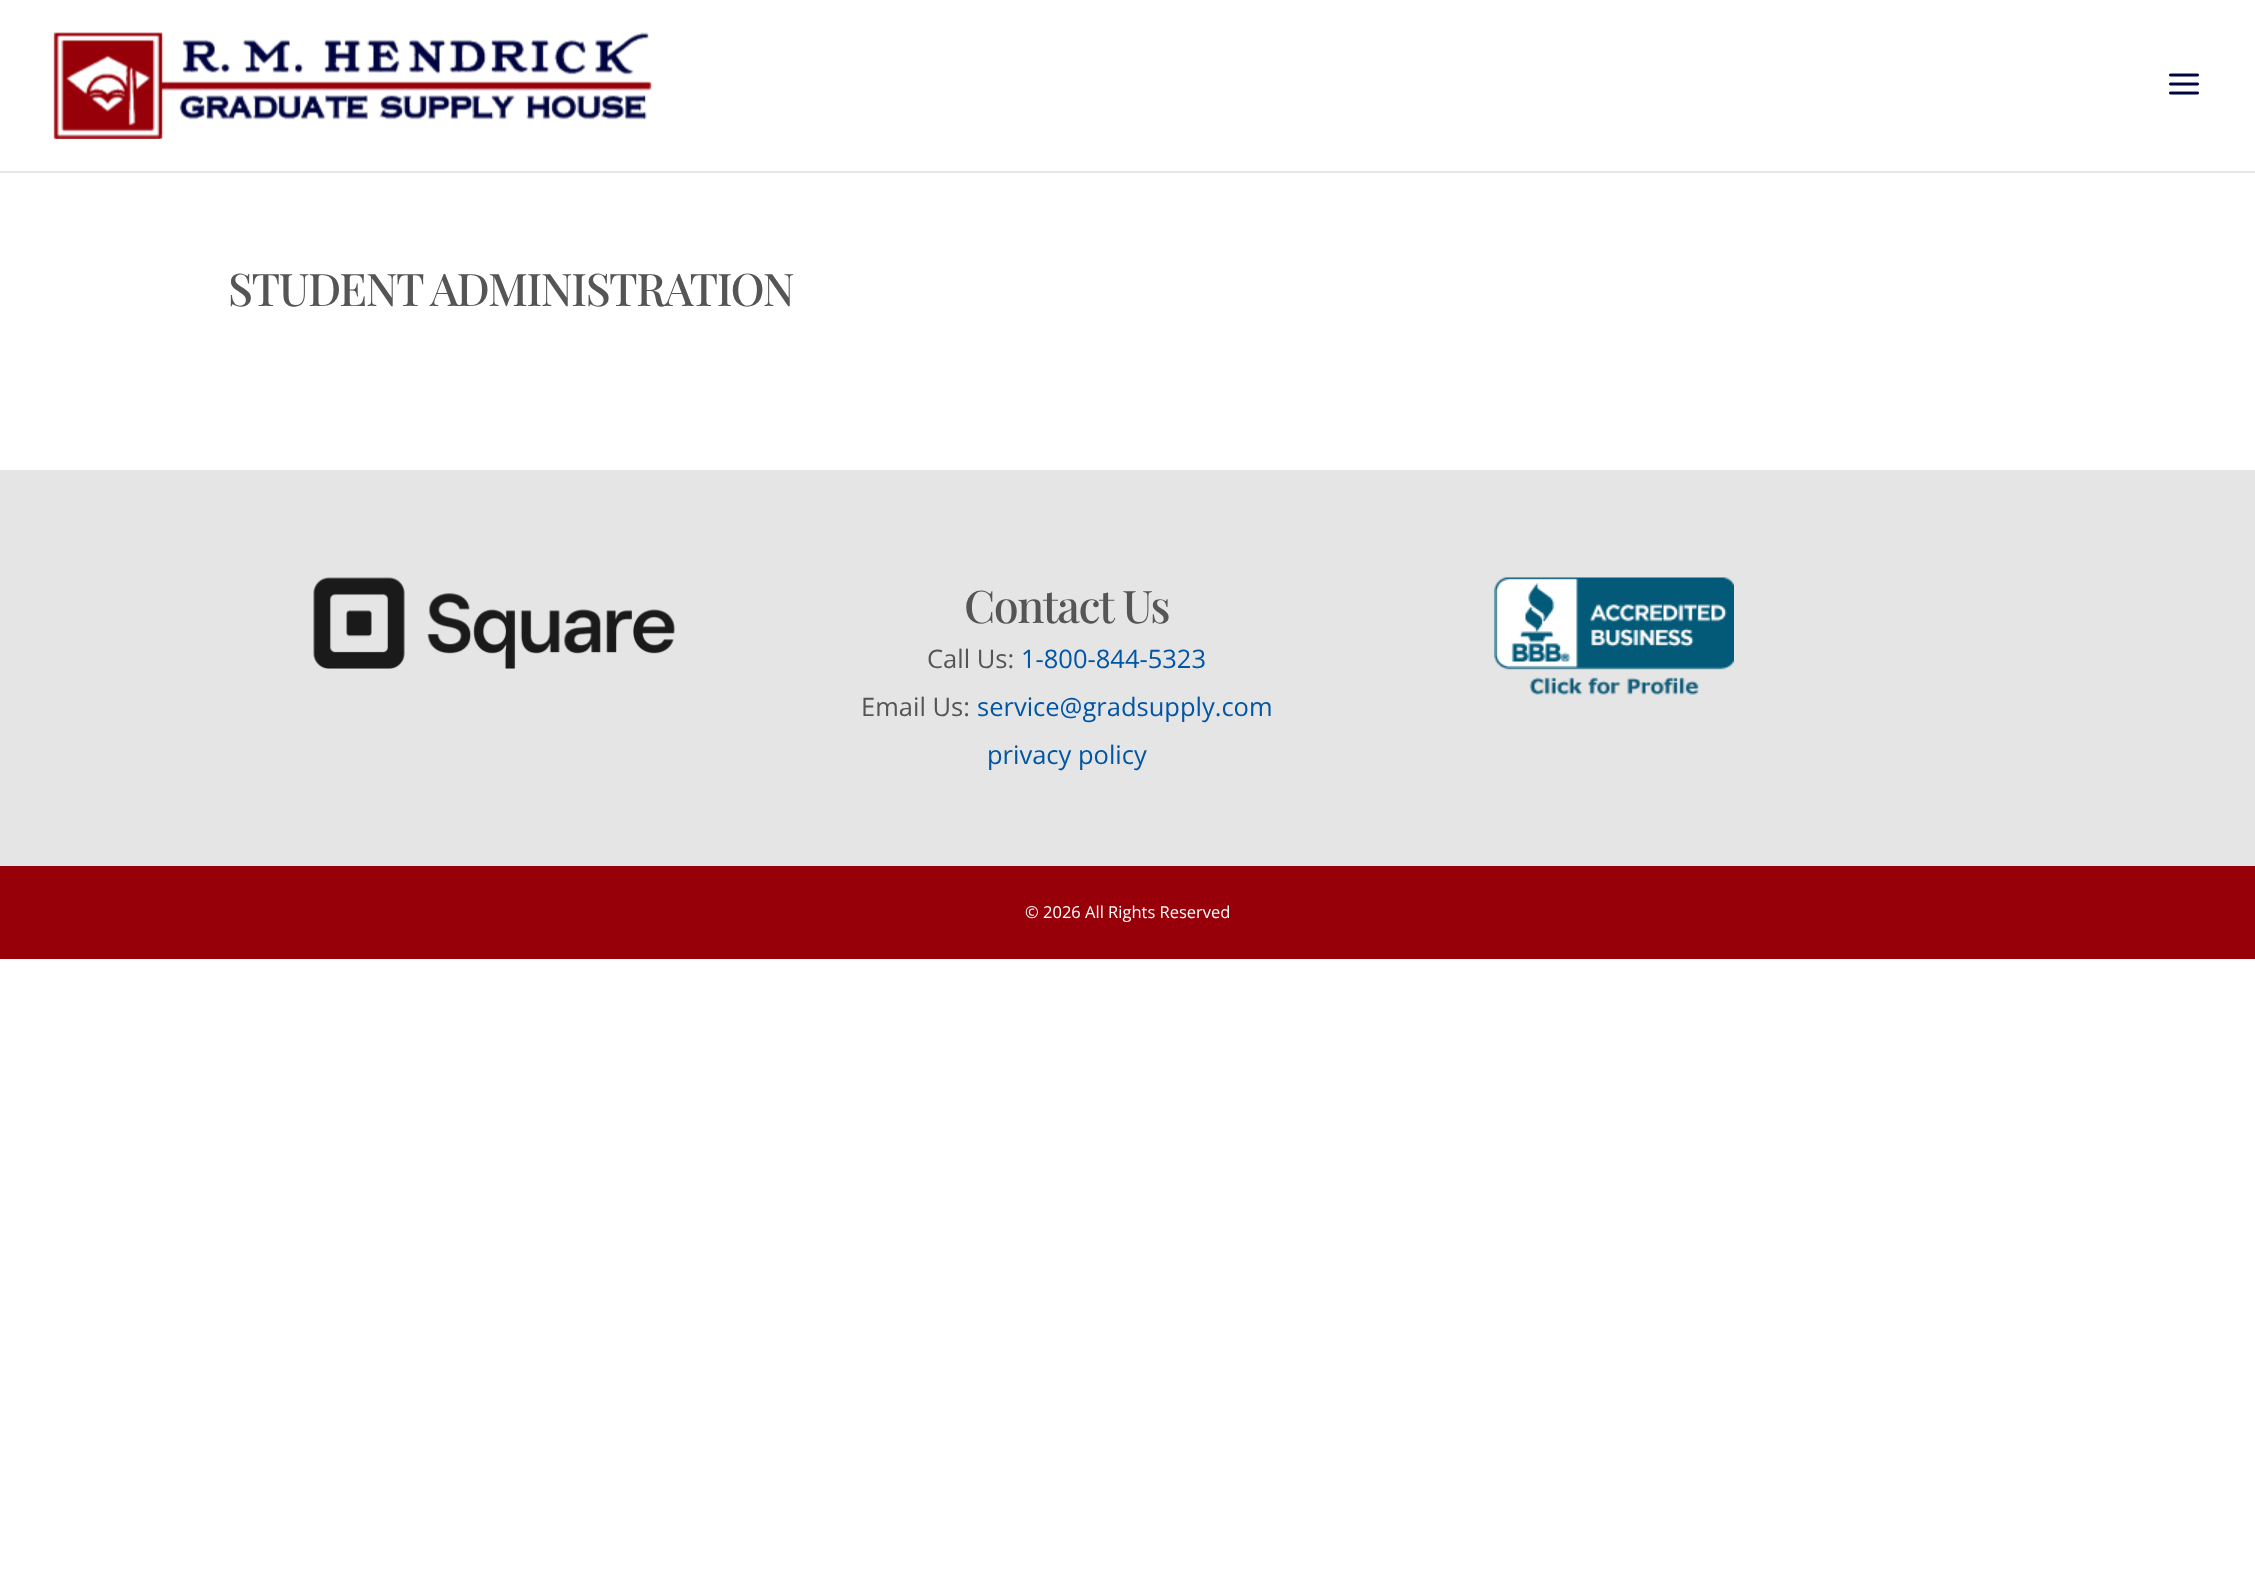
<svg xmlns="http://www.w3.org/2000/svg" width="2255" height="1580">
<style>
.a{font:500 45px Playfair Display;letter-spacing:-1.5px;fill:#555}
.b{font:25.5px Open Sans;fill:#555}
.c{font:25.5px Open Sans;fill:#0055a5}
.d{font:16.5px Open Sans;fill:#fff}
</style>
<rect width="100%" height="100%" fill="#fff"/>
<path fill="#e6e6e6" d="M0 171h2255v2H0z"/>
<image href="1.png" x="53" y="32" width="599" height="107"/>
<image href="2.png" x="2169" y="73" width="30" height="22"/>
<path fill="#e5e5e5" d="M0 470h2255v396H0z"/>
<image href="3.png" x="313" y="577" width="362" height="92"/>
<image href="4.png" x="1494" y="577" width="240" height="118"/>
<path fill="#970009" d="M0 866h2255v93H0z"/>
<text class="a" x="228" y="306">STUDENT ADMINISTRATION</text>
<text class="a" x="964" y="623">Contact Us</text>
<text class="b" x="927" y="668">Call Us:</text>
<text class="c" x="1021" y="668">1-800-844-5323</text>
<text class="b" x="861" y="716">Email Us:</text>
<text class="c" x="977" y="716">service@gradsupply.com</text>
<text class="c" x="987" y="764">privacy policy</text>
<text class="d" x="1025" y="918">© 2026 All Rights Reserved</text>
</svg>
